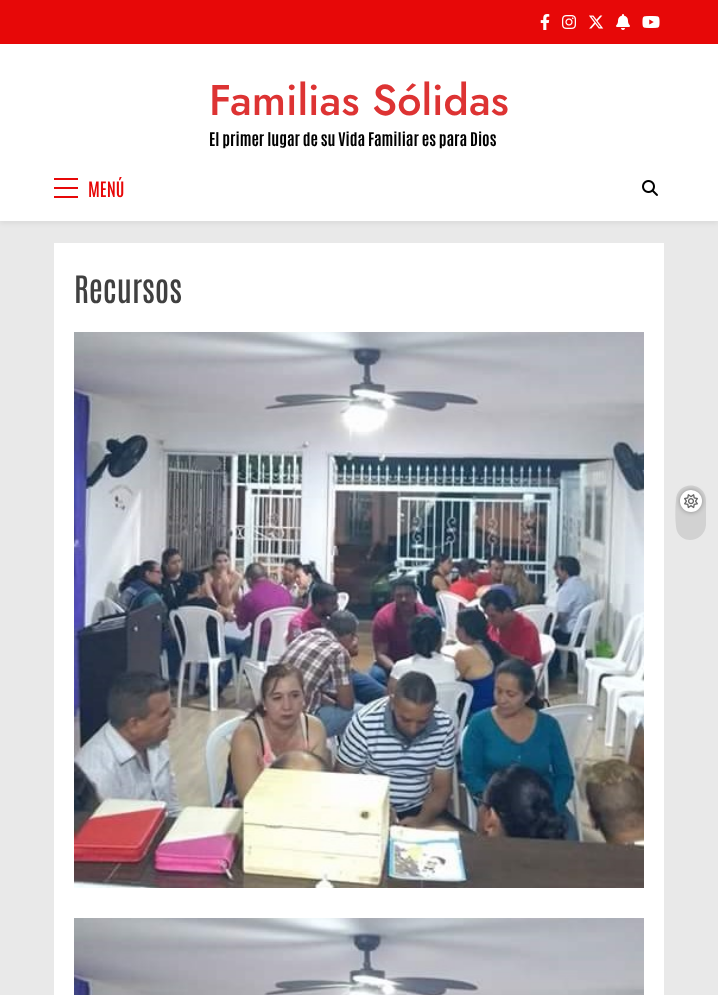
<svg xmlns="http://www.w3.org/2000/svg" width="718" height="995">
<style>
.a{font:500 43px Jost;fill:#d33}
.b{font:bold 16px Antonio;fill:#000}
.c{font:600 18px Antonio;fill:#e70808}
.d{font:500 32px Antonio;fill:#404040}
</style>
<rect width="100%" height="100%" fill="#e9e9e9"/>
<path fill="#e70808" d="M0 0h718v44H0z"/>
<image href="1.png" x="540" y="14" width="10" height="16"/>
<image href="2.png" x="562" y="15" width="14" height="14"/>
<image href="3.png" x="589" y="15" width="15" height="14"/>
<image href="4.png" x="616" y="14" width="14" height="16"/>
<image href="5.png" x="642" y="16" width="18" height="12"/>
<path fill="#0000000d" filter="blur(2px)" d="M0 47h718v177H0z"/>
<path fill="#fff" d="M0 44h718v177H0z"/>
<path fill="#e70808" d="M54 178h24v2H54z"/>
<path fill="#e70808" d="M54 187h24v2H54z"/>
<path fill="#e70808" d="M54 196h24v2H54z"/>
<image href="6.png" x="642" y="180" width="16" height="16"/>
<path fill="#d2d2d2" d="M706 501v24c-1 16-23 21-29 6c-2-6-2-24-1-30c0-21 30-20 30 0z"/>
<rect fill="#00000059" filter="blur(2.5px)" x="680" y="490" width="22" height="22" rx="11"/>
<circle fill="#fff" cx="691" cy="501" r="11"/>
<image href="7.png" x="684" y="494" width="14" height="15"/>
<path fill="#fff" d="M54 243h610v752H54z"/>
<image href="8.png" x="74" y="332" width="570" height="556"/>
<image href="9.png" x="74" y="918" width="570" height="77"/>
<text class="a" x="209" y="115">Familias Sólidas</text>
<text class="b" x="209" y="146">El primer lugar de su Vida Familiar es para Dios</text>
<text class="c" x="88" y="197">MENÚ</text>
<text class="d" x="74" y="303">Recursos</text>
</svg>
